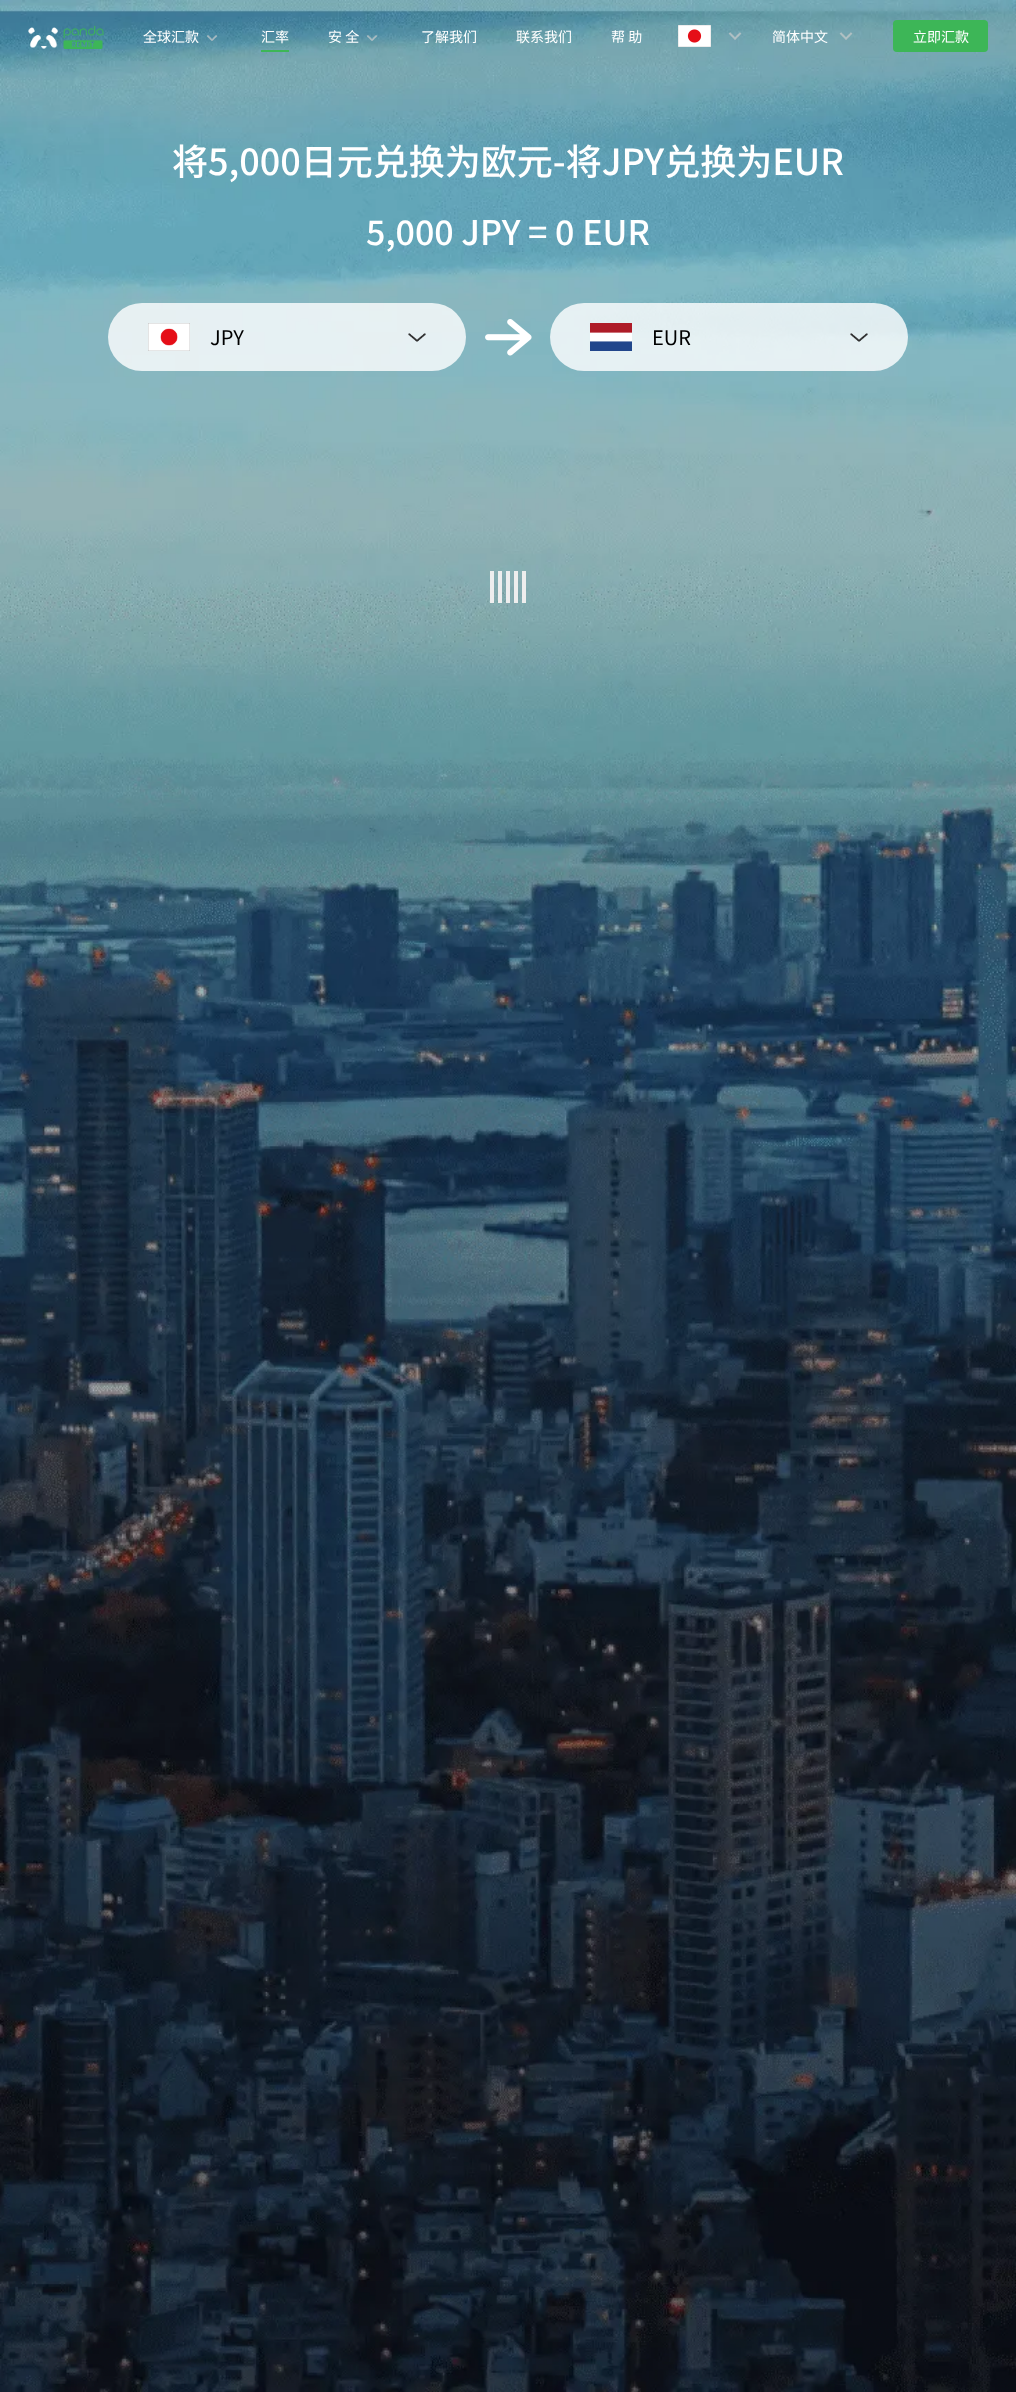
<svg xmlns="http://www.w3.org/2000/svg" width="1016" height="2392">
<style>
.a{font:14px Noto Sans CJK SC;fill:#fff}
.b{font:500 36px Noto Sans CJK SC;fill:#fff}
.c{font:500 34px Noto Sans CJK SC;fill:#fff}
.d{font:20px Noto Sans CJK SC;fill:#000}
</style>
<rect width="100%" height="100%" fill="#fff"/>
<image href="1.png" x="0" y="0" width="1016" height="2392"/>
<image href="2.png" x="28" y="25" width="76" height="24"/>
<image href="3.png" x="206" y="35" width="12" height="6"/>
<path fill="#3db657" d="M261 50h28v2H261z"/>
<image href="4.png" x="366" y="35" width="12" height="6"/>
<image href="5.png" x="678" y="25" width="33" height="22"/>
<image href="6.png" x="728" y="32" width="14" height="8"/>
<image href="7.png" x="839" y="32" width="14" height="8"/>
<rect fill="#3db657" x="893" y="20" width="95" height="32" rx="4"/>
<rect fill="#ffffffcc" x="108" y="303" width="358" height="68" rx="34"/>
<image href="8.png" x="148" y="323" width="42" height="28"/>
<image href="9.png" x="408" y="333" width="18" height="9"/>
<image href="10.png" x="485" y="319" width="47" height="37"/>
<rect fill="#ffffffcc" x="550" y="303" width="358" height="68" rx="34"/>
<image href="11.png" x="590" y="323" width="42" height="28"/>
<image href="12.png" x="850" y="333" width="18" height="9"/>
<path fill="#eee" d="M490 571h4v32H490z"/>
<path fill="#eee" d="M498 571h4v32H498z"/>
<path fill="#eee" d="M506 571h4v32H506z"/>
<path fill="#eee" d="M514 571h4v32H514z"/>
<path fill="#eee" d="M522 571h4v32H522z"/>
<text class="a" x="143" y="42">全球汇款</text>
<text class="a" x="261" y="42">汇率</text>
<text class="a" x="328" y="42">安 全</text>
<text class="a" x="421" y="42">了解我们</text>
<text class="a" x="516" y="42">联系我们</text>
<text class="a" x="611" y="42">帮 助</text>
<text class="a" x="772" y="42">简体中文</text>
<text class="a" x="913" y="42">立即汇款</text>
<text class="b" x="172" y="175">将5,000日元兑换为欧元-将JPY兑换为EUR</text>
<text class="c" x="366" y="245">5,000 JPY = 0 EUR</text>
<text class="d" x="210" y="345">JPY</text>
<text class="d" x="652" y="345">EUR</text>
</svg>
